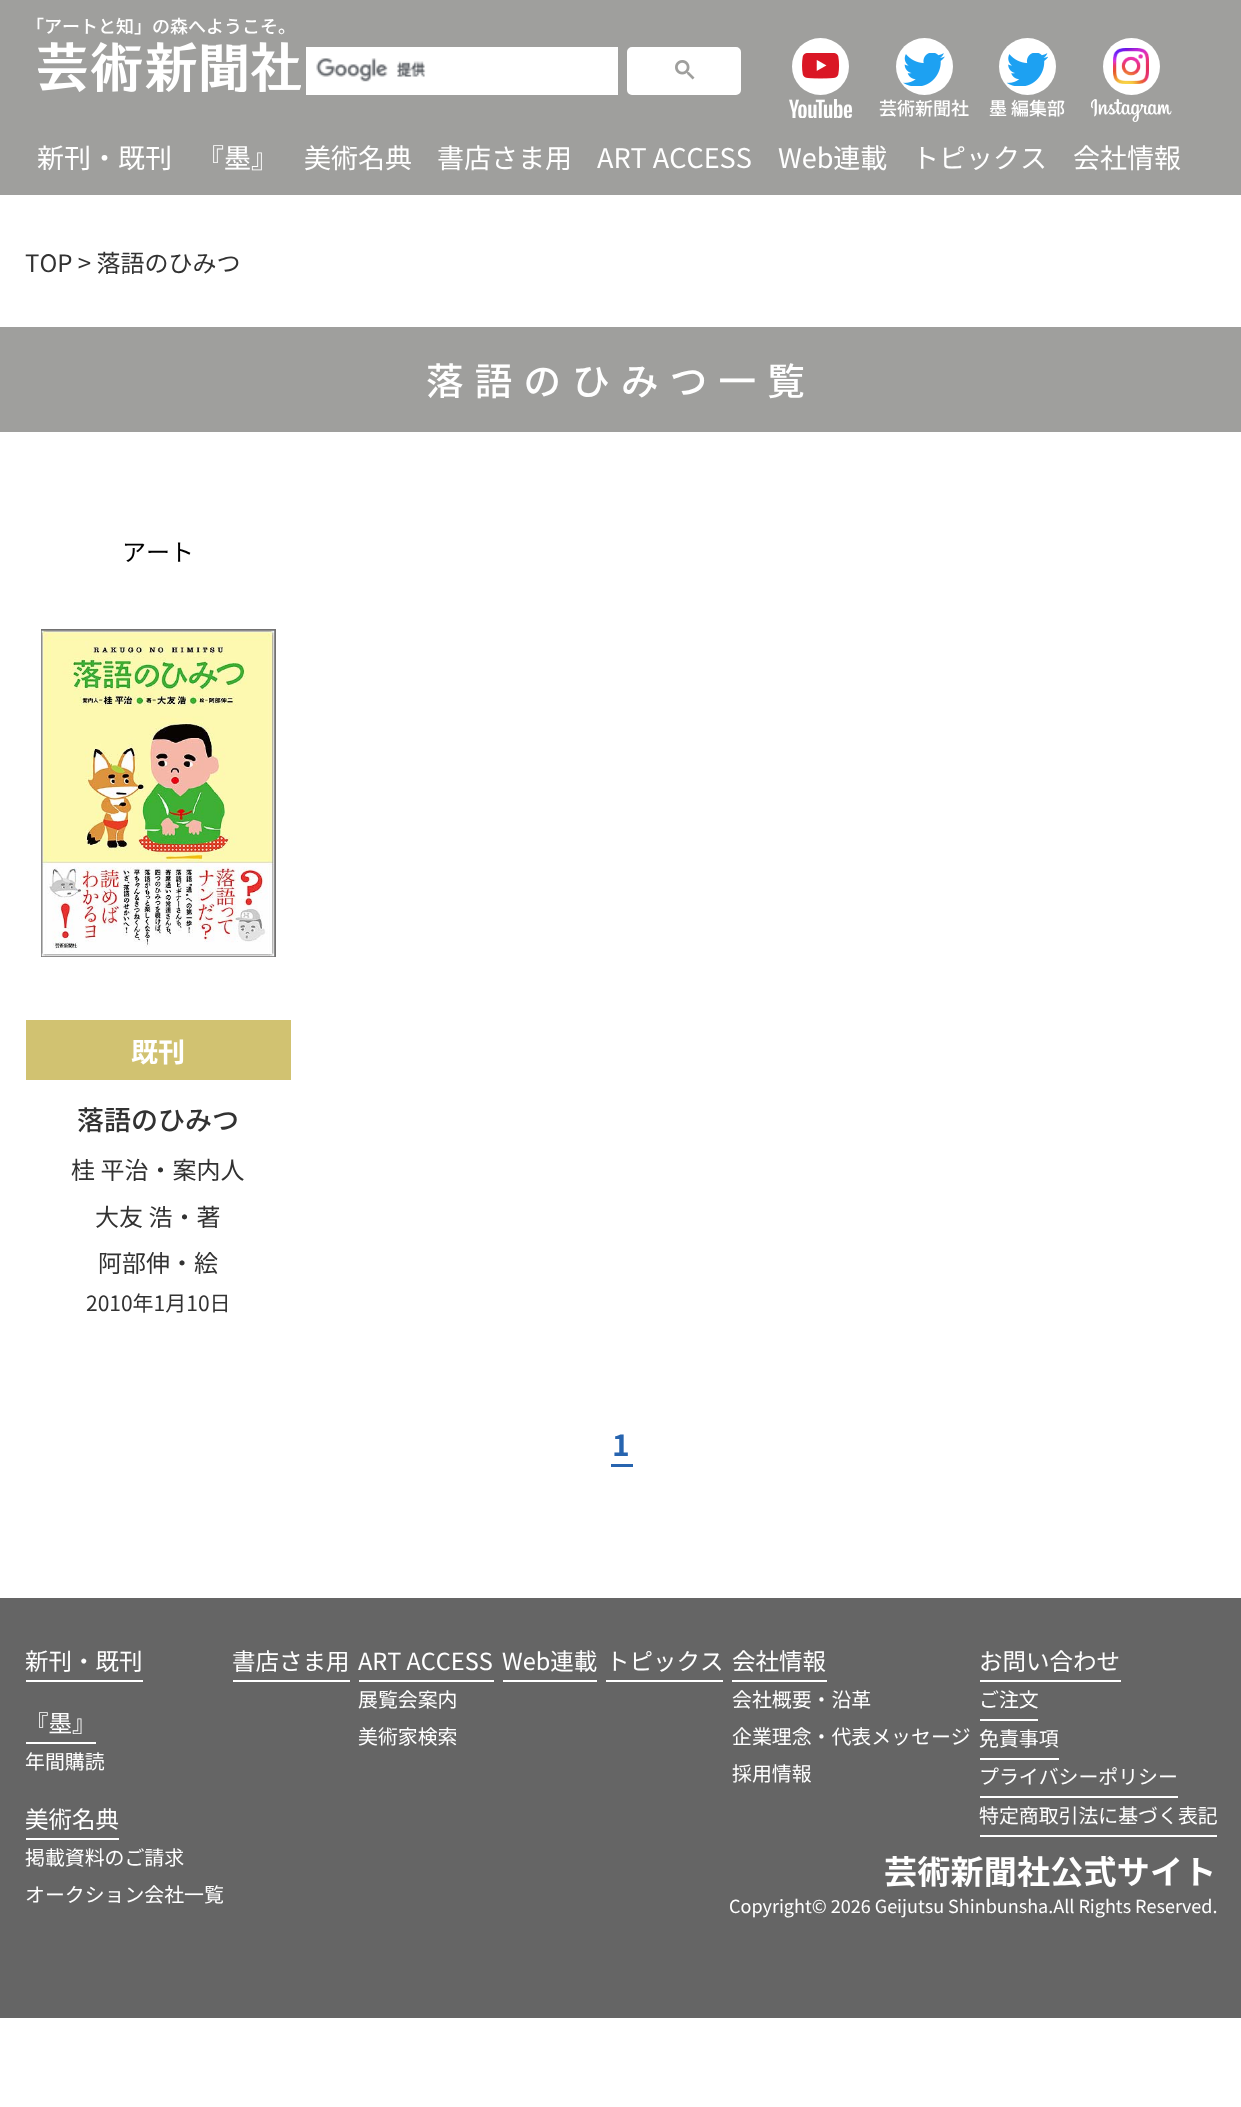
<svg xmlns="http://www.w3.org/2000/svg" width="1241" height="2107">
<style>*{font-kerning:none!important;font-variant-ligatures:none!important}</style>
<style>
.a{font:500 18px Noto Sans JP;fill:#fff}
.b{font:27px Noto Sans JP;fill:#fff}
.c{font:24px Noto Sans JP;fill:#323232}
.d{font:500 37.5px Noto Sans JP;letter-spacing:11.25px;fill:#fff}
.e{font:24px Noto Sans JP;fill:#000}
.f{font:bold 27px Noto Sans JP;fill:#fff}
.g{font:500 27px Noto Sans JP;fill:#323232}
.h{font:21px Noto Sans JP;fill:#323232}
.i{font:bold 30px Noto Sans JP;fill:#2764af}
.j{font:23.5px Noto Sans JP;fill:#fff}
.k{font:19.9px Noto Sans JP;fill:#fff}
.l{font:bold 33px Noto Sans JP;letter-spacing:0.25px;fill:#fff}
.m{font:18px Noto Sans JP;fill:#fff}
</style>
<rect width="100%" height="100%" fill="#fff"/>
<path fill="#9f9f9d" d="M0 0h1241v195H0z"/>
<image href="1.png" x="38" y="42" width="263" height="50"/>
<path fill="#fff" d="M306 47h312v48H306z"/>
<image href="2.png" x="316" y="58" width="110" height="24"/>
<rect fill="#fff" stroke="#fff" stroke-width="2" x="628" y="48" width="112" height="46" rx="4"/>
<image href="3.png" x="675" y="60" width="20" height="20"/>
<circle fill="#fff" cx="820.5" cy="66.5" r="28.5"/>
<image href="4.png" x="802" y="53" width="38" height="26"/>
<image href="5.png" x="789" y="99" width="63" height="19"/>
<circle fill="#fff" cx="924.5" cy="66.5" r="28.5"/>
<image href="6.png" x="903" y="53" width="42" height="33"/>
<circle fill="#fff" cx="1027.5" cy="66.5" r="28.5"/>
<image href="7.png" x="1007" y="53" width="41" height="33"/>
<circle fill="#fff" cx="1131.5" cy="66.5" r="28.5"/>
<image href="8.png" x="1113" y="48" width="36" height="36"/>
<image href="9.png" x="1091" y="99" width="81" height="23"/>
<path fill="#9f9f9d" d="M0 327h1241v105H0z"/>
<path fill="none" stroke="#727171" stroke-width="2" d="M42 630h233v326H42z"/>
<image href="10.png" x="41" y="630" width="234" height="327"/>
<path fill="#d1c271" d="M26 1020h265v60H26z"/>
<path fill="#2764af" d="M611 1464h22v3H611z"/>
<path fill="#656565" d="M0 1598h1241v420H0z"/>
<path fill="#fff" d="M26 1680h117v2H26z"/>
<path fill="#fff" d="M26 1742h70v2H26z"/>
<path fill="#fff" d="M26 1838h93v2H26z"/>
<path fill="#fff" d="M233 1680h117v2H233z"/>
<path fill="#fff" d="M359 1680h135v2H359z"/>
<path fill="#fff" d="M503 1680h94v2H503z"/>
<path fill="#fff" d="M606 1680h117v2H606z"/>
<path fill="#fff" d="M732 1680h95v2H732z"/>
<path fill="#fff" d="M980 1680h141v2H980z"/>
<path fill="#fff" d="M980 1719h58v2H980z"/>
<path fill="#fff" d="M980 1758h79v2H980z"/>
<path fill="#fff" d="M980 1796h198v2H980z"/>
<path fill="#fff" d="M980 1835h237v2H980z"/>
<text class="a" x="26" y="33">「アートと知」の森へようこそ。</text>
<text class="a" x="879" y="115">芸術新聞社</text>
<text class="a" x="989" y="115">墨 編集部</text>
<text class="b" x="37" y="168">新刊・既刊</text>
<text class="b" x="197" y="168">『墨』</text>
<text class="b" x="304" y="168">美術名典</text>
<text class="b" x="437" y="168">書店さま用</text>
<text class="b" x="597" y="168">ART ACCESS</text>
<text class="b" x="778" y="168">Web連載</text>
<text class="b" x="912" y="168">トピックス</text>
<text class="b" x="1073" y="168">会社情報</text>
<text class="c" x="25" y="272">TOP &gt; 落語のひみつ</text>
<text class="d" x="426" y="395">落語のひみつ一覧</text>
<text class="e" x="122" y="561">アート</text>
<text class="f" x="131" y="1062">既刊</text>
<text class="g" x="77" y="1130">落語のひみつ</text>
<text class="c" x="71" y="1179">桂 平治・案内人</text>
<text class="c" x="95" y="1226">大友 浩・著</text>
<text class="c" x="98" y="1272">阿部伸・絵</text>
<text class="h" x="86" y="1311">2010年1月10日</text>
<text class="i" x="612" y="1456">1</text>
<text class="j" x="25" y="1670">新刊・既刊</text>
<text class="j" x="25" y="1732">『墨』</text>
<text class="k" x="25" y="1769">年間購読</text>
<text class="j" x="25" y="1828">美術名典</text>
<text class="k" x="25" y="1865">掲載資料のご請求</text>
<text class="k" x="25" y="1902">オークション会社一覧</text>
<text class="j" x="232" y="1670">書店さま用</text>
<text class="j" x="358" y="1670">ART ACCESS</text>
<text class="k" x="358" y="1707">展覧会案内</text>
<text class="k" x="358" y="1744">美術家検索</text>
<text class="j" x="502" y="1670">Web連載</text>
<text class="j" x="606" y="1670">トピックス</text>
<text class="j" x="732" y="1670">会社情報</text>
<text class="k" x="732" y="1707">会社概要・沿革</text>
<text class="k" x="732" y="1744">企業理念・代表メッセージ</text>
<text class="k" x="732" y="1781">採用情報</text>
<text class="j" x="979" y="1670">お問い合わせ</text>
<text class="k" x="979" y="1707">ご注文</text>
<text class="k" x="979" y="1746">免責事項</text>
<text class="k" x="979" y="1784">プライバシーポリシー</text>
<text class="k" x="979" y="1823">特定商取引法に基づく表記</text>
<text class="l" x="884" y="1884">芸術新聞社公式サイト</text>
<text class="m" x="729" y="1913">Copyright© 2026 Geijutsu Shinbunsha.All Rights Reserved.</text>
</svg>
